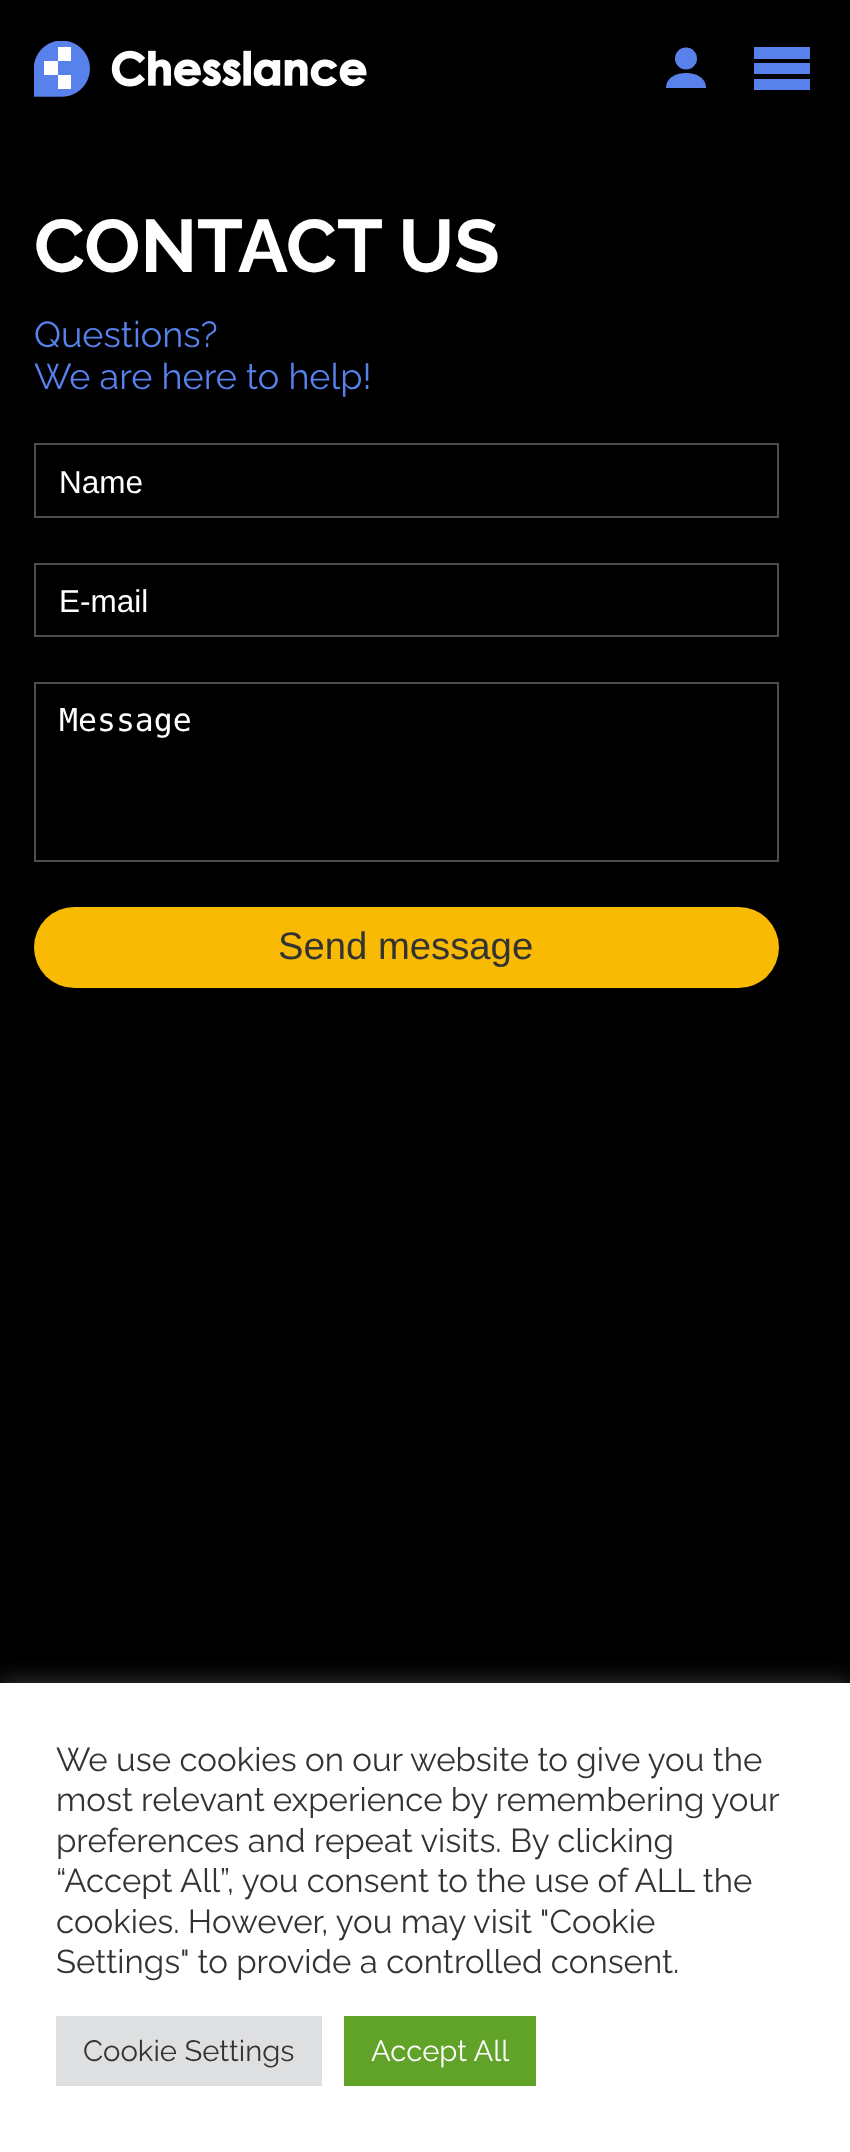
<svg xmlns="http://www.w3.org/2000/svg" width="850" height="2152">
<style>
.a{font:bold 74.25px Raleway;fill:#fff}
.b{font:36px Raleway;fill:#5781ed}
.c{font:31.5px Liberation Sans;fill:#fff}
.d{font:31.5px DejaVu Sans Mono;fill:#fff}
.e{font:38.25px Liberation Sans;fill:#333}
.f{font:33px Raleway;fill:#333}
.g{font:29.25px Raleway;fill:#333}
.h{font:29.25px Raleway;fill:#fff}
</style>
<rect width="100%" height="100%" fill="#000"/>
<image href="1.png" x="34" y="41" width="333" height="56"/>
<path fill="#5881eb" d="M686 73c-9 0-20 4-20 15h40c0-11-11-15-20-15z"/>
<circle fill="#5881eb" cx="686" cy="58.5" r="11"/>
<path fill="#5881eb" d="M754 63h56v11H754z"/>
<path fill="#5881eb" d="M754 47h56v12H754z"/>
<path fill="#5881eb" d="M754 79h56v11H754z"/>
<path fill="none" stroke="#4d4d4d" stroke-width="2" d="M35 444h743v73H35z"/>
<path fill="none" stroke="#4d4d4d" stroke-width="2" d="M35 564h743v72H35z"/>
<path fill="none" stroke="#4d4d4d" stroke-width="2" d="M35 683h743v178H35z"/>
<rect fill="#f8ba03" x="34" y="907" width="745" height="81" rx="40.5"/>
<path fill="#acabab4d" filter="blur(11px)" d="M0 1681h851v470H0z"/>
<path fill="#fff" d="M0 1683h850v469H0z"/>
<path fill="#dedfe0" d="M56 2016h266v70H56z"/>
<path fill="#61a229" d="M344 2016h192v70H344z"/>
<text class="a" x="34" y="272">CONTACT US</text>
<text class="b" x="34" y="347">Questions?</text>
<text class="b" x="34" y="389">We are here to help!</text>
<text class="c" x="59" y="493">Name</text>
<text class="c" x="59" y="612">E-mail</text>
<text class="d" x="59" y="731">Message</text>
<text class="e" x="278" y="959">Send message</text>
<text class="f" x="56" y="1771">We use cookies on our website to give you the</text>
<text class="f" x="56" y="1811" word-spacing="-0.25">most relevant experience by remembering your</text>
<text class="f" x="56" y="1852">preferences and repeat visits. By clicking</text>
<text class="f" x="56" y="1892">“Accept All”, you consent to the use of ALL the</text>
<text class="f" x="56" y="1933">cookies. However, you may visit "Cookie</text>
<text class="f" x="56" y="1973">Settings" to provide a controlled consent.</text>
<text class="g" x="83" y="2061">Cookie Settings</text>
<text class="h" x="371" y="2061">Accept All</text>
</svg>
